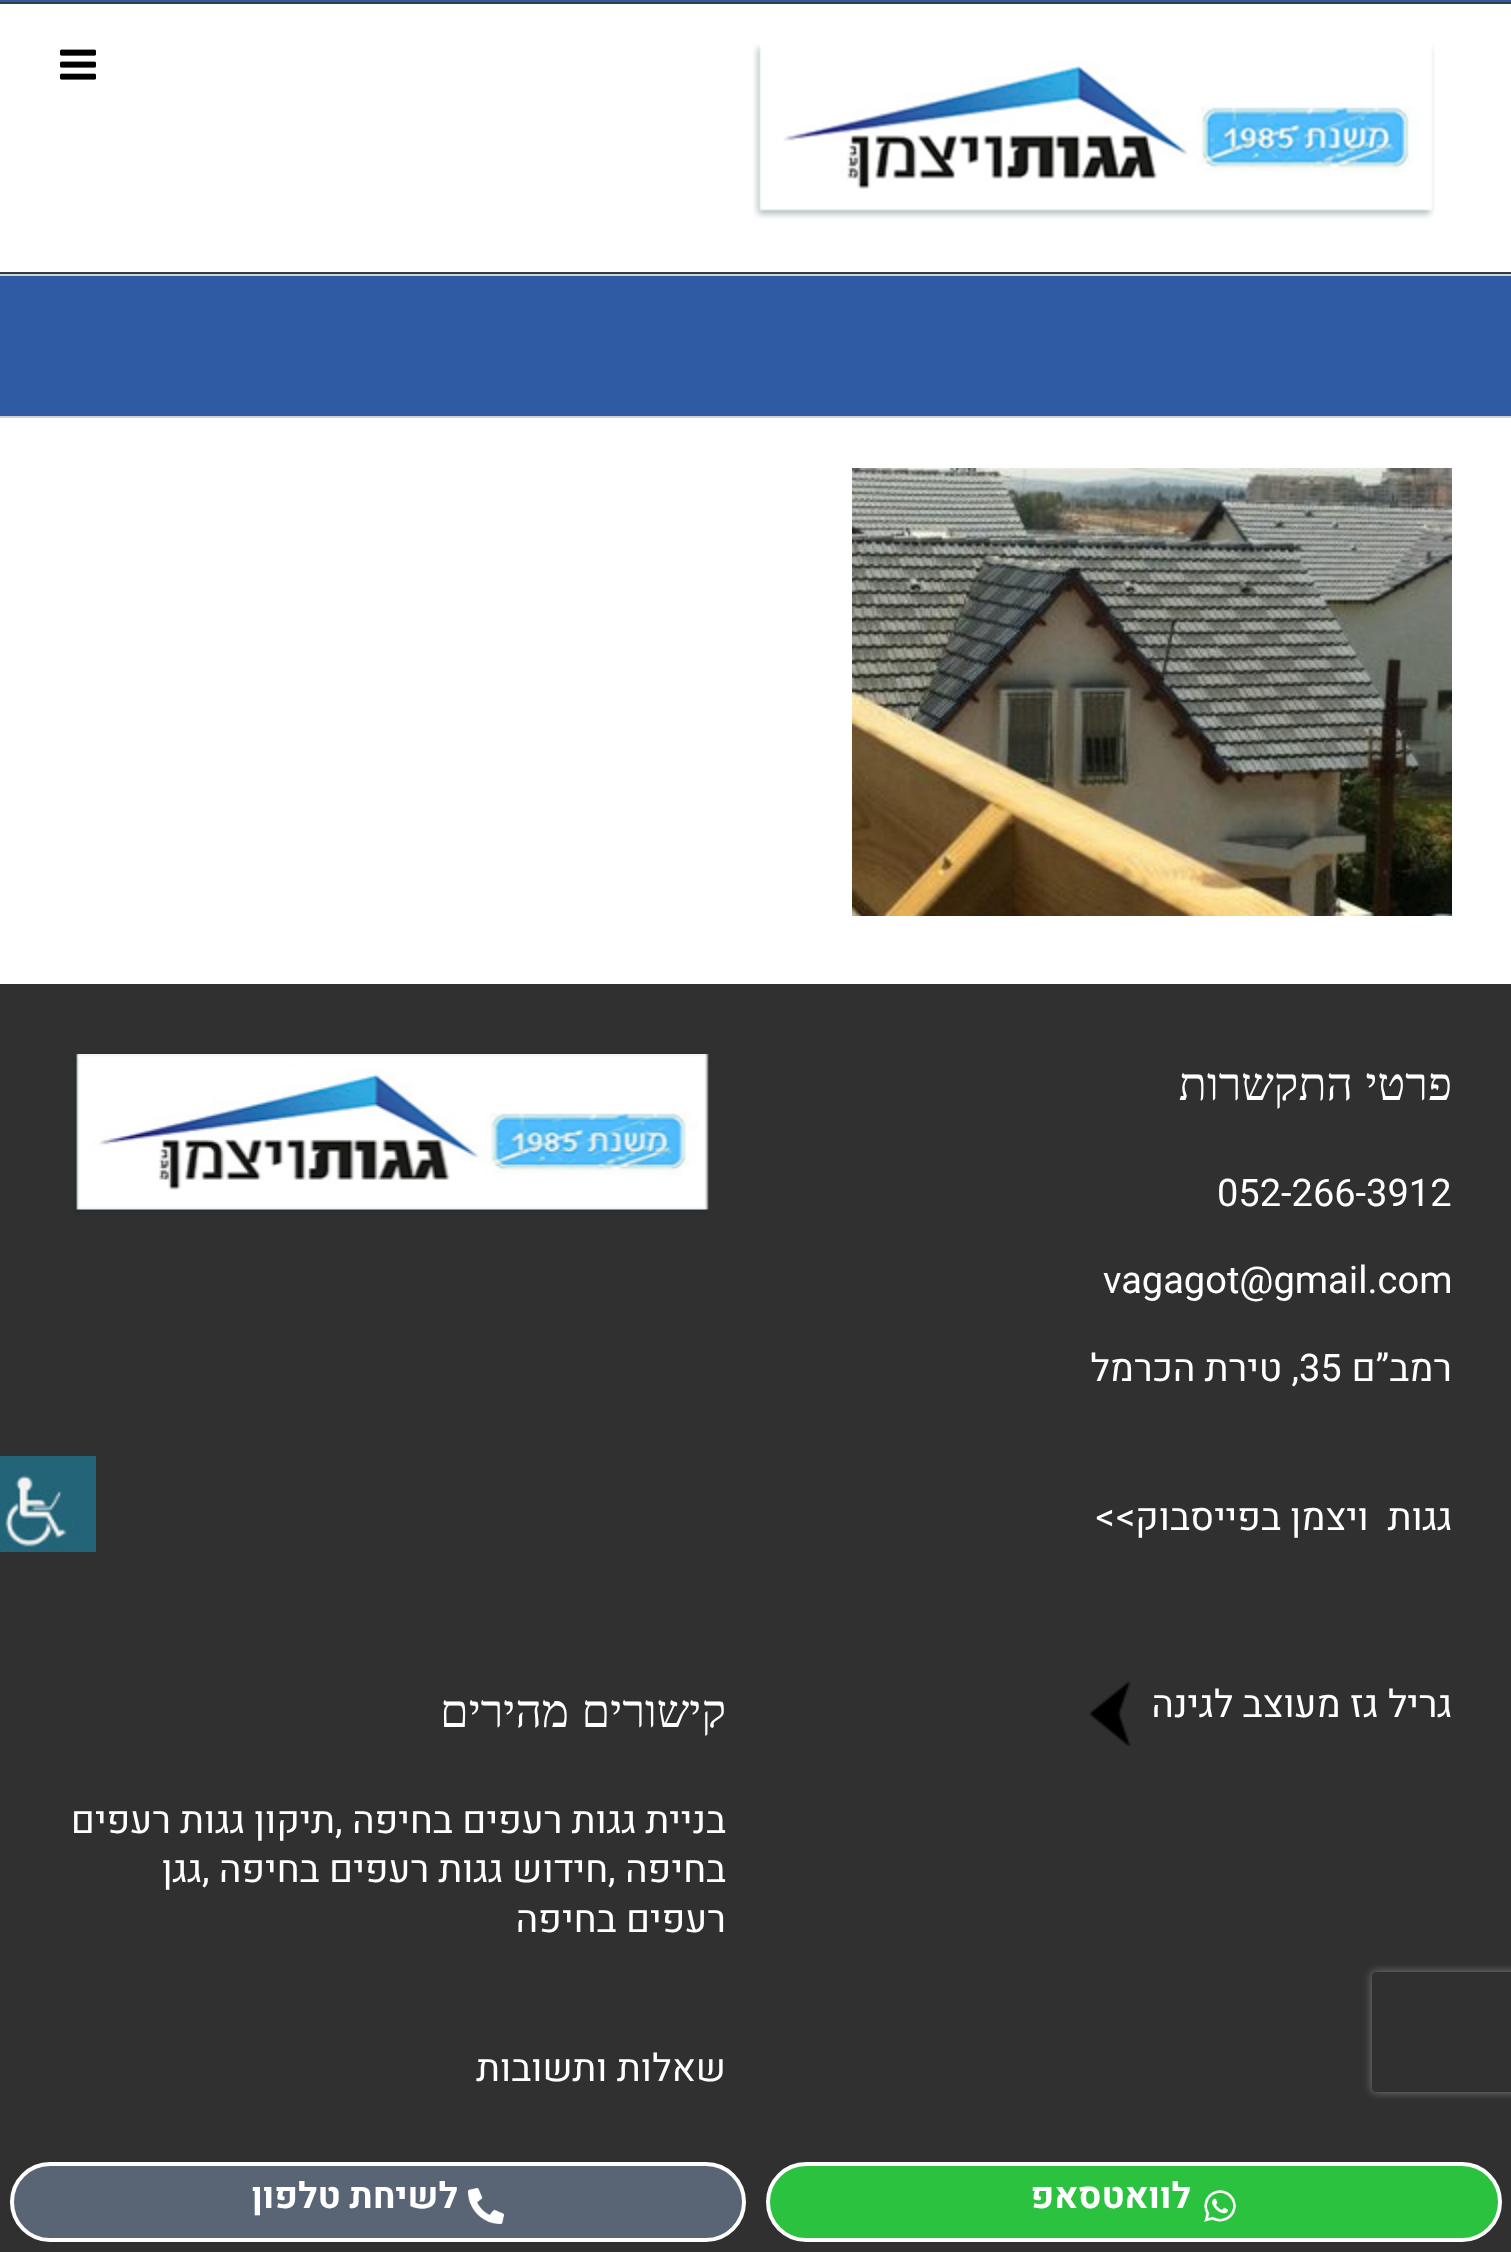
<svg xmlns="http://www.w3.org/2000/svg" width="1511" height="2252">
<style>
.a{font:46px Liberation Serif;direction:rtl;fill:#fff}
.b{font:38px Heebo;fill:#fff}
.c{font:38px Heebo;direction:rtl;fill:#fff}
.d{font:bold 36px Heebo;direction:rtl;fill:#fff}
</style>
<defs>
<clipPath id="clip1"><path d="M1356 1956h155v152h-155zm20 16h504c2 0 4 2 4 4v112c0 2-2 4-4 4h-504c-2 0-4-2-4-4v-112c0-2 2-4 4-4z" clip-rule="evenodd"/></clipPath>
</defs>
<rect width="100%" height="100%" fill="#fff"/>
<path fill="#2f5aa4" d="M0 0h1511v2H0z"/>
<path fill="#333c42" d="M0 2h1511v2H0z"/>
<path fill="#333c42" d="M0 272h1511v2H0z"/>
<image href="1.png" x="753" y="44" width="682" height="175"/>
<image href="2.png" x="60" y="49" width="36" height="31"/>
<path fill="#2f5aa4" d="M0 276h1511v140H0z"/>
<path fill="#d2d3d4" d="M0 274h1511v2H0z"/>
<path fill="#d2d3d4" d="M0 416h1511v2H0z"/>
<image href="3.png" x="852" y="468" width="600" height="448"/>
<path fill="#303030" d="M0 984h1511v1268H0z"/>
<image href="4.png" x="73" y="1054" width="636" height="161"/>
<image href="5.png" x="1089" y="1681" width="42" height="65"/>
<rect fill="#2bc23f" stroke="#fff" stroke-width="4" x="768" y="2164" width="732" height="76" rx="38"/>
<image href="6.png" x="1204" y="2190" width="32" height="32"/>
<rect fill="#596475" stroke="#fff" stroke-width="4" x="12" y="2164" width="732" height="76" rx="38"/>
<image href="7.png" x="468" y="2188" width="36" height="36"/>
<image href="8.png" x="0" y="1456" width="96" height="96"/>
<g clip-path="url(#clip1)">
<rect fill="#808080" filter="blur(5px)" x="1372" y="1972" width="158" height="120" rx="4"/>
</g>
<text class="a" x="1452" y="1100" word-spacing="1">פרטי התקשרות</text>
<text class="b" x="1217" y="1206">052-266-3912</text>
<text class="b" x="1103" y="1293">vagagot@gmail.com</text>
<text class="c" x="1452" y="1381">רמב”ם</text>
<text class="b" x="1299" y="1381">35</text>
<text class="c" x="1299" y="1381">, טירת הכרמל</text>
<text class="c" xml:space="preserve" x="1452" y="1530">גגות  ויצמן בפייסבוק&gt;&gt;</text>
<text class="c" x="1452" y="1717">גריל גז מעוצב לגינה</text>
<text class="a" x="726" y="1727" word-spacing="1">קישורים מהירים</text>
<text class="c" x="726" y="1833">בניית גגות רעפים בחיפה</text>
<text class="b" x="335" y="1833">,</text>
<text class="c" x="335" y="1833">תיקון גגות רעפים</text>
<text class="c" x="726" y="1882">בחיפה</text>
<text class="b" x="608" y="1882">,</text>
<text class="c" x="608" y="1882">חידוש גגות רעפים בחיפה</text>
<text class="b" x="202" y="1882">,</text>
<text class="c" x="202" y="1882">גגן</text>
<text class="c" x="726" y="1932">רעפים בחיפה</text>
<text class="c" x="726" y="2081">שאלות ותשובות</text>
<text class="d" x="1191" y="2208">לוואטסאפ</text>
<text class="d" x="458" y="2208">לשיחת טלפון</text>
</svg>
